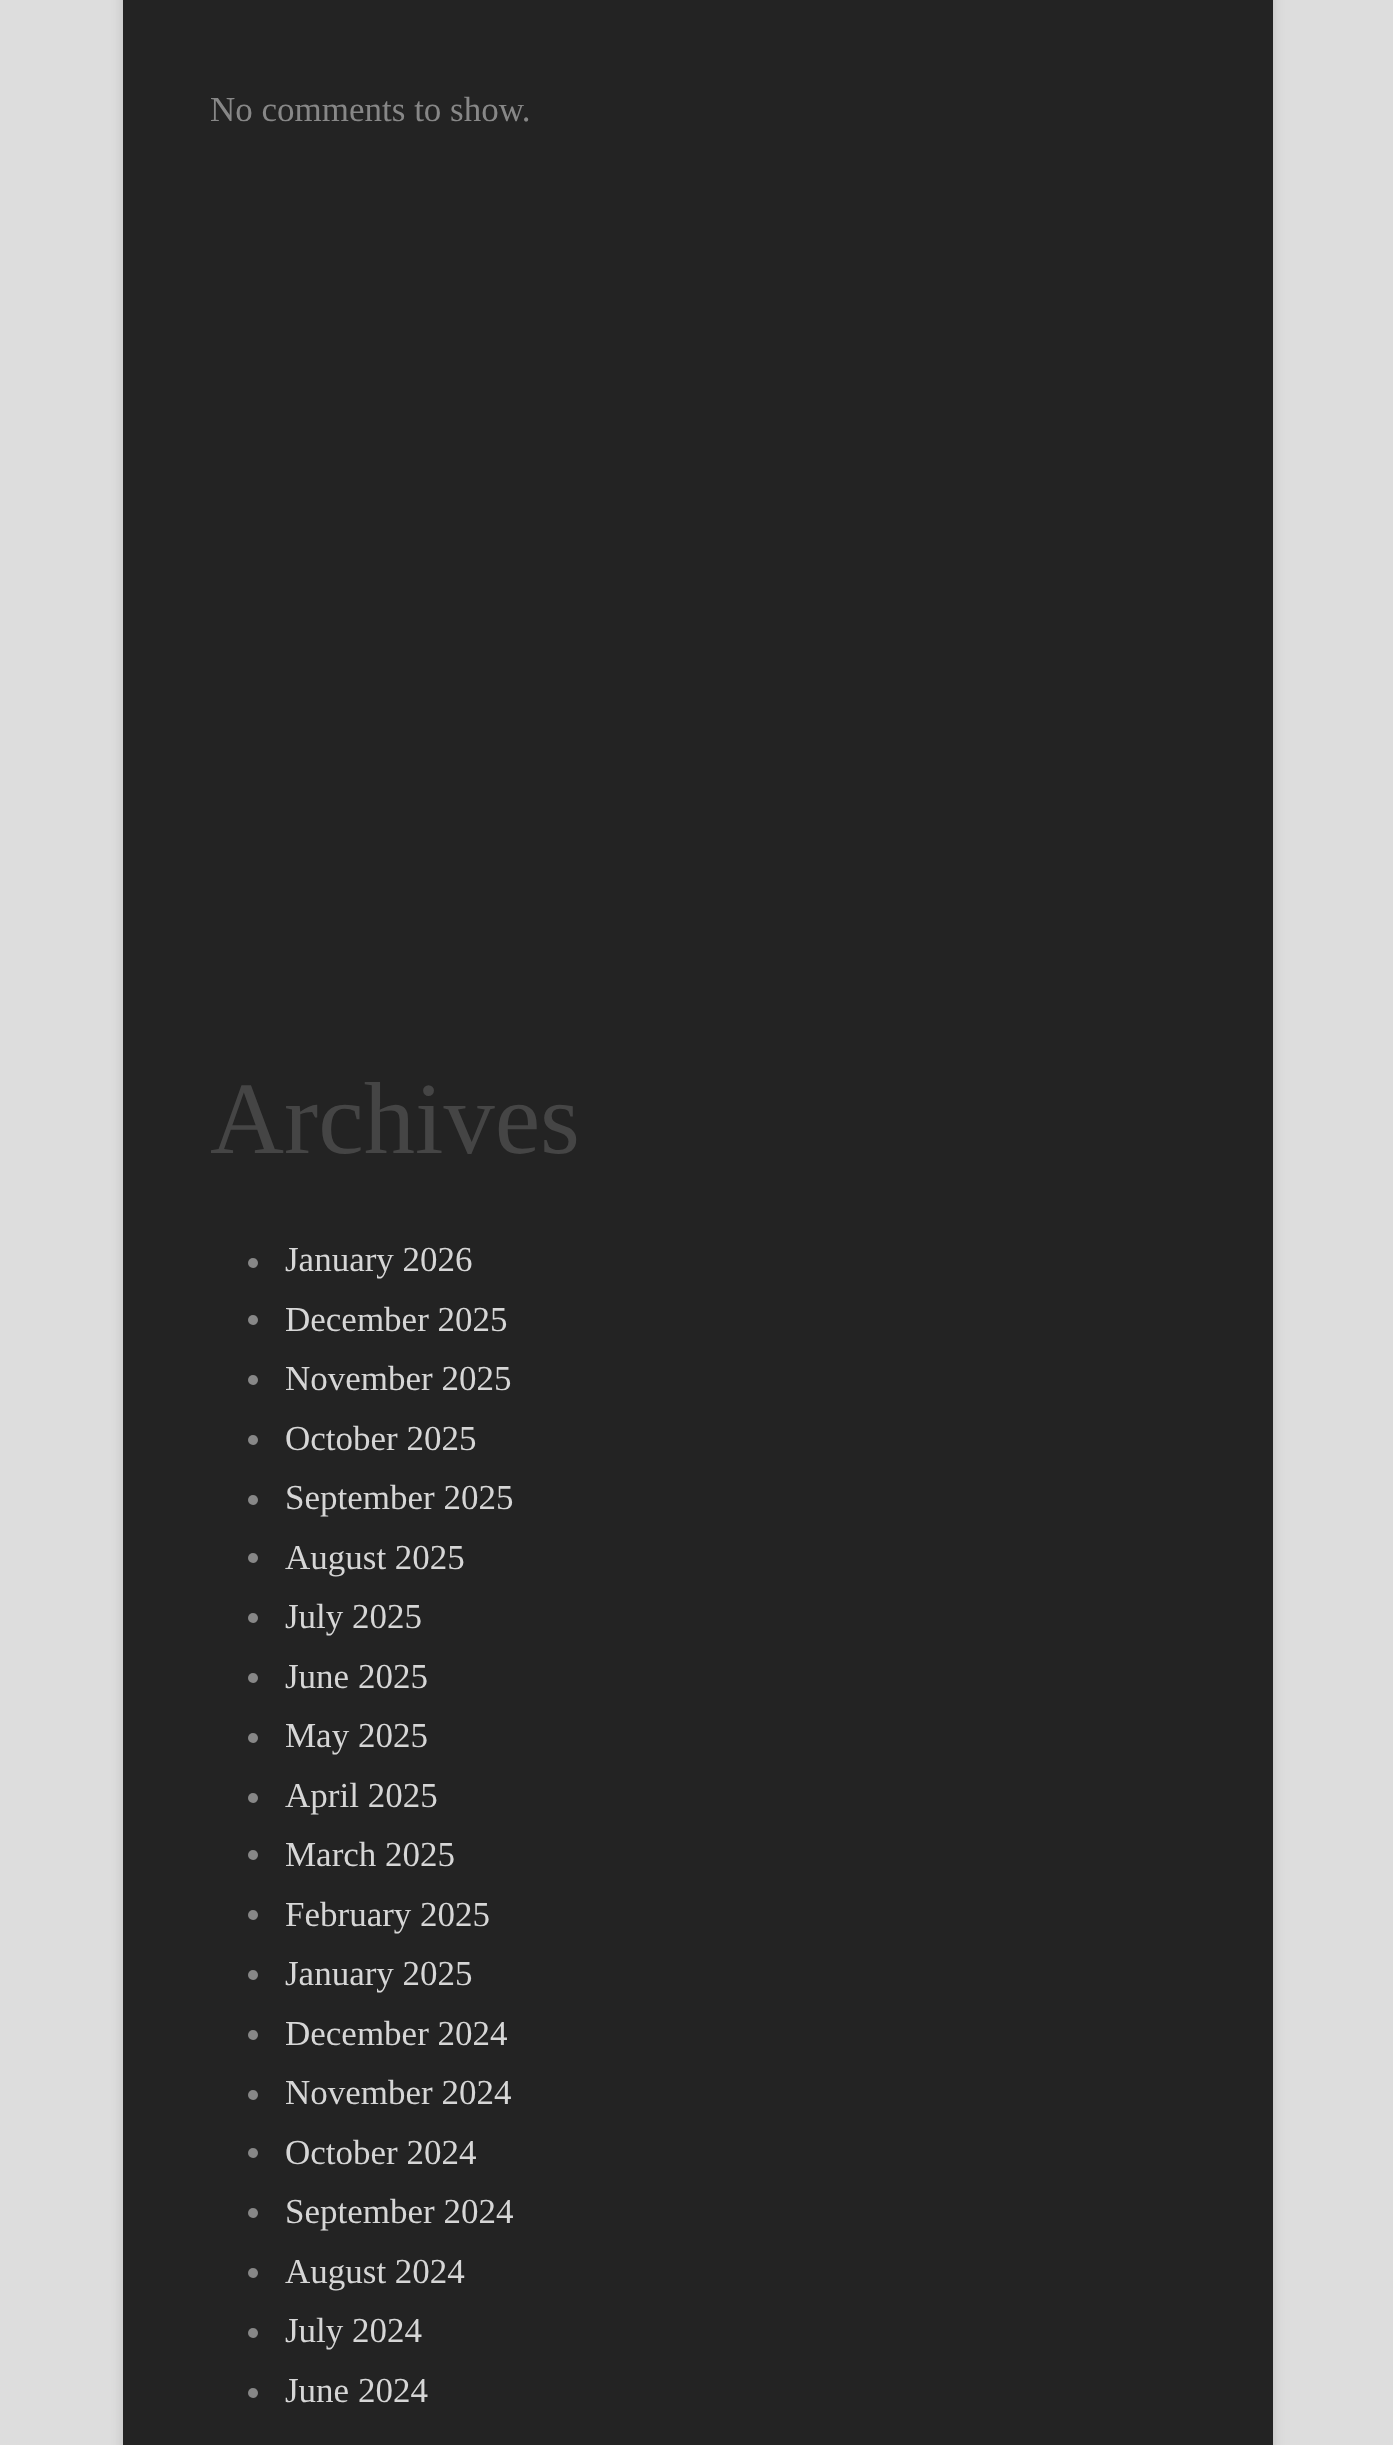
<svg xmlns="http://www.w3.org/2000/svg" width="1393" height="2445">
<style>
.a{font:35px Liberation Serif;fill:#878787}
.b{font:102.5px Liberation Serif;fill:#454545}
.c{font:35px Liberation Serif;fill:#d6d6d6}
</style>
<rect width="100%" height="100%" fill="#ddd"/>
<path fill="#00000026" filter="blur(6px)" d="M123 -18h1150v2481H123z"/>
<path fill="#232323" d="M123 0h1150v2445H123z"/>
<circle fill="#878787" cx="253" cy="1263" r="5"/>
<circle fill="#878787" cx="253" cy="1320" r="5"/>
<circle fill="#878787" cx="253" cy="1380" r="5"/>
<circle fill="#878787" cx="253" cy="1440" r="5"/>
<circle fill="#878787" cx="253" cy="1500" r="5"/>
<circle fill="#878787" cx="253" cy="1558" r="5"/>
<circle fill="#878787" cx="253" cy="1618" r="5"/>
<circle fill="#878787" cx="253" cy="1678" r="5"/>
<circle fill="#878787" cx="253" cy="1738" r="5"/>
<circle fill="#878787" cx="253" cy="1798" r="5"/>
<circle fill="#878787" cx="253" cy="1855" r="5"/>
<circle fill="#878787" cx="253" cy="1915" r="5"/>
<circle fill="#878787" cx="253" cy="1975" r="5"/>
<circle fill="#878787" cx="253" cy="2035" r="5"/>
<circle fill="#878787" cx="253" cy="2095" r="5"/>
<circle fill="#878787" cx="253" cy="2153" r="5"/>
<circle fill="#878787" cx="253" cy="2213" r="5"/>
<circle fill="#878787" cx="253" cy="2273" r="5"/>
<circle fill="#878787" cx="253" cy="2333" r="5"/>
<circle fill="#878787" cx="253" cy="2393" r="5"/>
<text class="a" x="210" y="121">No comments to show.</text>
<text class="b" x="210" y="1153">Archives</text>
<text class="c" x="285" y="1271">January 2026</text>
<text class="c" x="285" y="1331">December 2025</text>
<text class="c" x="285" y="1390">November 2025</text>
<text class="c" x="285" y="1450">October 2025</text>
<text class="c" x="285" y="1509">September 2025</text>
<text class="c" x="285" y="1569">August 2025</text>
<text class="c" x="285" y="1628">July 2025</text>
<text class="c" x="285" y="1688">June 2025</text>
<text class="c" x="285" y="1747">May 2025</text>
<text class="c" x="285" y="1807">April 2025</text>
<text class="c" x="285" y="1866">March 2025</text>
<text class="c" x="285" y="1926">February 2025</text>
<text class="c" x="285" y="1985">January 2025</text>
<text class="c" x="285" y="2045">December 2024</text>
<text class="c" x="285" y="2104">November 2024</text>
<text class="c" x="285" y="2164">October 2024</text>
<text class="c" x="285" y="2223">September 2024</text>
<text class="c" x="285" y="2283">August 2024</text>
<text class="c" x="285" y="2342">July 2024</text>
<text class="c" x="285" y="2402">June 2024</text>
</svg>
